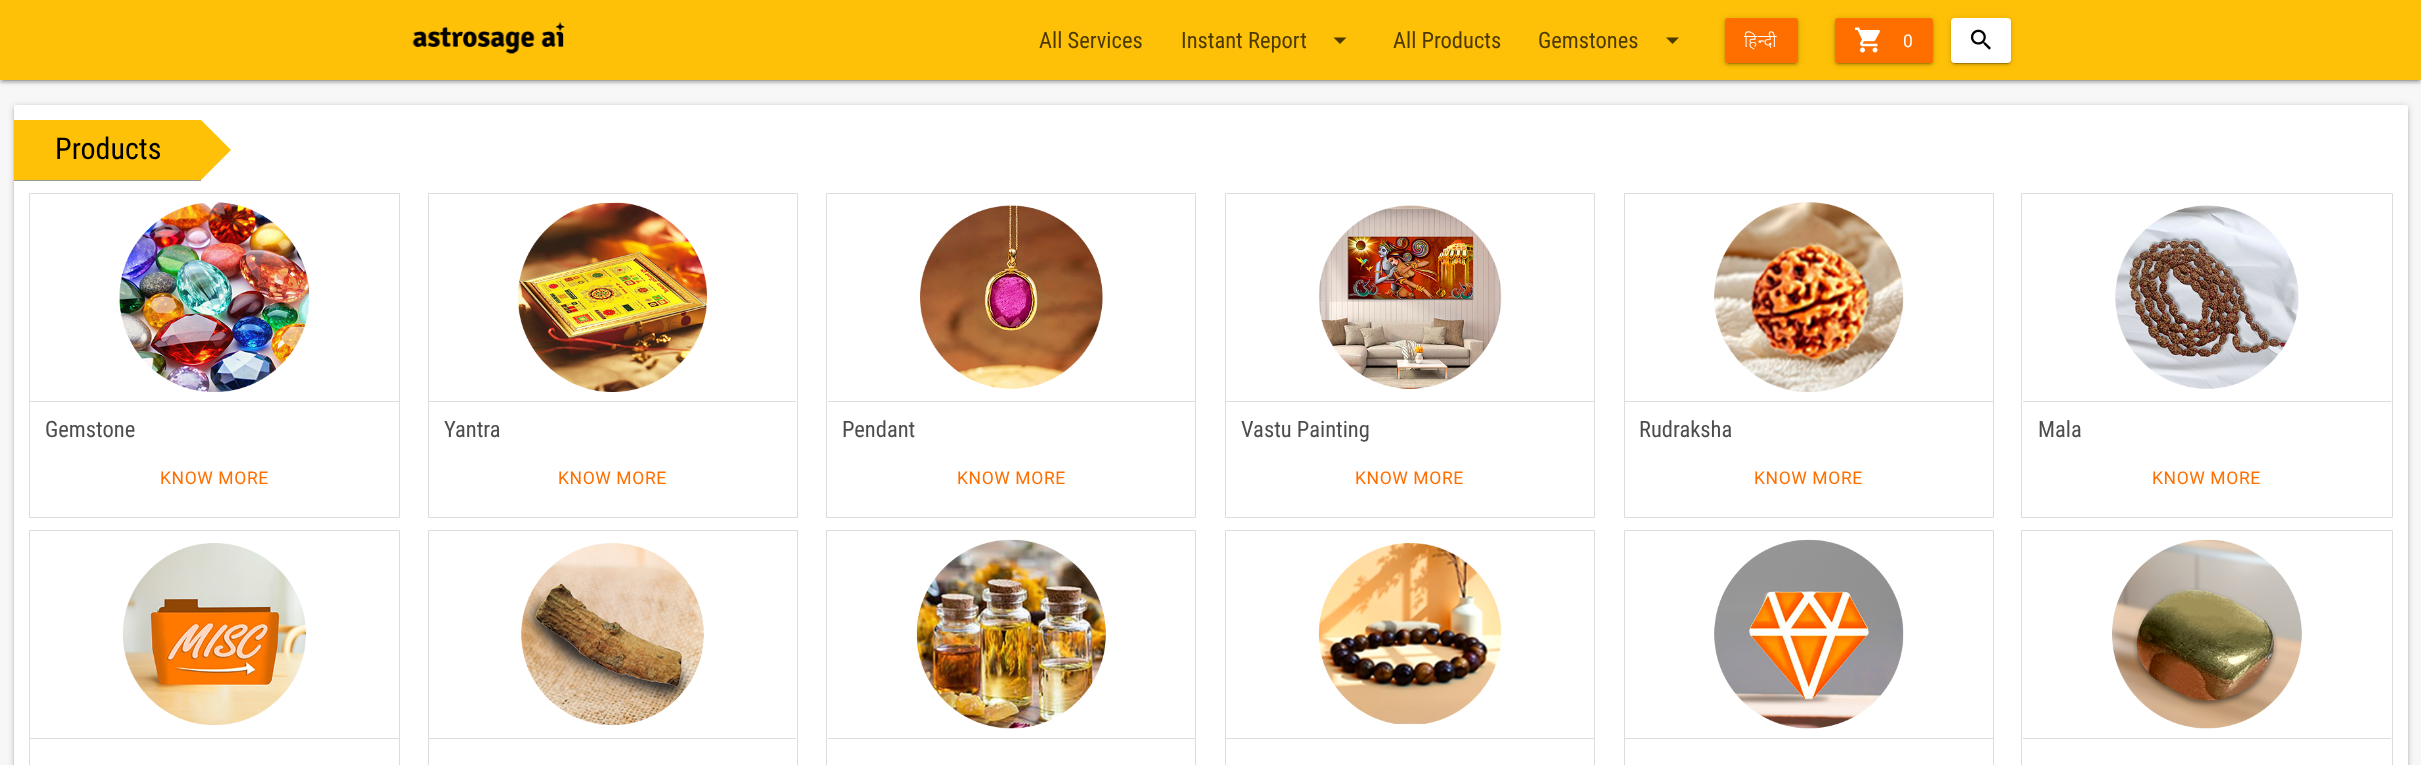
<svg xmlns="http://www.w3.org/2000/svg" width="2421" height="765">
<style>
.a{font:22.5px Roboto Condensed;fill:#4d3a01}
.b{font:300 17.5px Noto Sans;letter-spacing:0.6px;fill:#fff}
.c{font:17.5px Roboto;letter-spacing:0.6px;fill:#fff}
.d{font:30px Roboto Condensed;fill:#000}
.e{font:22.5px Roboto Condensed;fill:#4d4d4d}
.f{font:17.5px Roboto;letter-spacing:0.6px;fill:#ff6f00}
</style>
<rect width="100%" height="100%" fill="#f7f7f7"/>
<path fill="#00000033" filter="blur(3px)" d="M0 1h2421v80H0z"/>
<path fill="#0000001f" filter="blur(0.5px)" d="M3 6h2416v75H3z"/>
<path fill="#00000024" filter="blur(1px)" d="M0 3h2421v80H0z"/>
<path fill="#ffc107" d="M0 0h2421v80H0z"/>
<image href="1.png" x="412" y="21" width="153" height="33"/>
<path fill="#4d3a01" d="M1333.5 37.5h13l-6.5 6.5z"/>
<path fill="#4d3a01" d="M1666 37.5h13l-6.5 6.5z"/>
<rect fill="#00000033" filter="blur(3px)" x="1725" y="19" width="73" height="45" rx="2.5"/>
<path fill="#0000001f" filter="blur(0.5px)" d="M1728 24h67v40H1728z"/>
<rect fill="#00000024" filter="blur(1px)" x="1725" y="20" width="73" height="45" rx="2.5"/>
<rect fill="#ff6f00" x="1725" y="18" width="73" height="45" rx="2.5"/>
<rect fill="#00000033" filter="blur(3px)" x="1835" y="19" width="98" height="45" rx="2.5"/>
<path fill="#0000001f" filter="blur(0.5px)" d="M1838 24h92v40H1838z"/>
<rect fill="#00000024" filter="blur(1px)" x="1835" y="20" width="98" height="45" rx="2.5"/>
<rect fill="#ff6f00" x="1835" y="18" width="98" height="45" rx="2.5"/>
<image href="2.png" x="1855" y="27" width="25" height="26"/>
<rect fill="#00000033" filter="blur(0.5px)" x="1954" y="24" width="55" height="40" rx="1"/>
<rect fill="#0000001f" filter="blur(3px)" x="1951" y="19" width="60" height="45" rx="4"/>
<rect fill="#00000024" filter="blur(1px)" x="1951" y="20" width="60" height="45" rx="4"/>
<rect fill="#fff" x="1951" y="18" width="60" height="45" rx="4"/>
<image href="3.png" x="1970" y="29" width="21" height="21"/>
<rect fill="#00000033" filter="blur(3px)" x="14" y="106" width="2394" height="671" rx="2.5"/>
<rect fill="#00000024" filter="blur(1px)" x="14" y="108" width="2394" height="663" rx="2.5"/>
<rect fill="#fff" x="14" y="105" width="2394" height="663" rx="2.5"/>
<path fill="#999" filter="blur(0.5px)" d="M14 121h187v60H14z"/>
<path fill="#ffc107" d="M14 120h187v60H14z"/>
<path fill="#ffc107" d="M201 180v-60l30 30z"/>
<path fill="none" stroke="#ddd" d="M29.5 193.5h370v324H29.5z"/>
<image href="4.png" x="119" y="202" width="191" height="190"/>
<path fill="#ddd" d="M30 401h369v1H30z"/>
<path fill="none" stroke="#ddd" d="M428.5 193.5h369v324H428.5z"/>
<image href="5.png" x="518" y="202" width="189" height="190"/>
<path fill="#ddd" d="M429 401h367v1H429z"/>
<path fill="none" stroke="#ddd" d="M826.5 193.5h369v324H826.5z"/>
<image href="6.png" x="920" y="205" width="183" height="184"/>
<path fill="#ddd" d="M828 401h367v1H828z"/>
<path fill="none" stroke="#ddd" d="M1225.5 193.5h369v324H1225.5z"/>
<image href="7.png" x="1319" y="205" width="183" height="184"/>
<path fill="#ddd" d="M1226 401h368v1H1226z"/>
<path fill="none" stroke="#ddd" d="M1624.5 193.5h369v324H1624.5z"/>
<image href="8.png" x="1714" y="202" width="190" height="190"/>
<path fill="#ddd" d="M1625 401h368v1H1625z"/>
<path fill="none" stroke="#ddd" d="M2021.5 193.5h371v324H2021.5z"/>
<image href="9.png" x="2115" y="205" width="184" height="184"/>
<path fill="#ddd" d="M2023 401h368v1H2023z"/>
<path fill="none" stroke="#ddd" d="M29.5 530.5h370v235H29.5z"/>
<image href="10.png" x="123" y="543" width="183" height="182"/>
<path fill="#ddd" d="M30 738h369v1H30z"/>
<path fill="none" stroke="#ddd" d="M428.5 530.5h369v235H428.5z"/>
<image href="11.png" x="521" y="543" width="183" height="182"/>
<path fill="#ddd" d="M429 738h367v1H429z"/>
<path fill="none" stroke="#ddd" d="M826.5 530.5h369v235H826.5z"/>
<image href="12.png" x="916" y="539" width="190" height="190"/>
<path fill="#ddd" d="M828 738h367v1H828z"/>
<path fill="none" stroke="#ddd" d="M1225.5 530.5h369v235H1225.5z"/>
<image href="13.png" x="1318" y="543" width="184" height="181"/>
<path fill="#ddd" d="M1226 738h368v1H1226z"/>
<path fill="none" stroke="#ddd" d="M1624.5 530.5h369v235H1624.5z"/>
<image href="14.png" x="1714" y="539" width="190" height="190"/>
<path fill="#ddd" d="M1625 738h368v1H1625z"/>
<path fill="none" stroke="#ddd" d="M2021.5 530.5h371v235H2021.5z"/>
<image href="15.png" x="2112" y="539" width="190" height="190"/>
<path fill="#ddd" d="M2023 738h368v1H2023z"/>
<text class="a" x="1039" y="48">All Services</text>
<text class="a" x="1181" y="48">Instant Report</text>
<text class="a" x="1393" y="48">All Products</text>
<text class="a" x="1538" y="48">Gemstones</text>
<text class="b" x="1744" y="47">हिन्दी</text>
<text class="c" x="1903" y="47">0</text>
<text class="d" x="55" y="159">Products</text>
<text class="e" x="45" y="437">Gemstone</text>
<text class="f" x="160" y="484">KNOW MORE</text>
<text class="e" x="444" y="437">Yantra</text>
<text class="f" x="558" y="484">KNOW MORE</text>
<text class="e" x="842" y="437">Pendant</text>
<text class="f" x="957" y="484">KNOW MORE</text>
<text class="e" x="1241" y="437">Vastu Painting</text>
<text class="f" x="1355" y="484">KNOW MORE</text>
<text class="e" x="1639" y="437">Rudraksha</text>
<text class="f" x="1754" y="484">KNOW MORE</text>
<text class="e" x="2038" y="437">Mala</text>
<text class="f" x="2152" y="484">KNOW MORE</text>
</svg>
